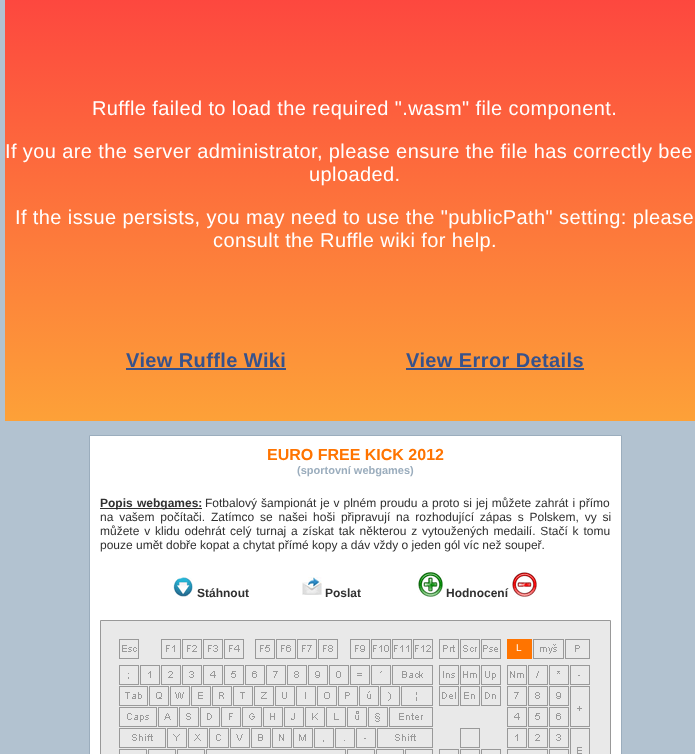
<svg xmlns="http://www.w3.org/2000/svg" width="695" height="754">
<style>
.a{font:20px Liberation Sans;letter-spacing:0.4px;fill:#fff}
.b{font:bold 20px Liberation Sans;letter-spacing:0.4px;fill:#37528c}
.c{font:bold 16px Liberation Sans;fill:#ff7400}
.d{font:bold 11px Liberation Sans;fill:#9badbd}
.e{font:bold 12px Liberation Sans;fill:#303030}
.f{font:12px Liberation Sans;fill:#303030}
.g{font:10px Liberation Sans;fill:#fff}
</style>
<defs>
<linearGradient id="g1" gradientUnits="userSpaceOnUse" x1="355" y1="-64" x2="355" y2="421"><stop offset="0" stop-color="#fd3a40"/><stop offset="1" stop-color="#fda138"/></linearGradient>
</defs>
<rect width="100%" height="100%" fill="#b2c2d0"/>
<path fill="url(#g1)" d="M5 0h690v421H5z"/>
<path fill="#37528c" d="M126 368h160v2H126z"/>
<path fill="#37528c" d="M406 368h178v2H406z"/>
<path fill="#fff" stroke="#9badbd" d="M89.5 435.5h532v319H89.5z"/>
<path fill="#303030" d="M100 508h102v1H100z"/>
<image href="1.png" x="173" y="577" width="20" height="20"/>
<image href="2.png" x="302" y="577" width="20" height="18"/>
<image href="3.png" x="418" y="572" width="25" height="25"/>
<image href="4.png" x="512" y="572" width="25" height="25"/>
<image href="5.png" x="101" y="621" width="509" height="133"/>
<path fill="none" stroke="#999" d="M100.5 620.5h510v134H100.5z"/>
<path fill="#ff7400" d="M507 639h25v20H507z"/>
<text class="a" x="92" y="115">Ruffle failed to load the required ".wasm" file component.</text>
<text class="a" x="5" y="158">If you are the server administrator, please ensure the file has correctly bee</text>
<text class="a" x="309" y="181">uploaded.</text>
<text class="a" x="15" y="224">If the issue persists, you may need to use the "publicPath" setting: please</text>
<text class="a" x="213" y="247">consult the Ruffle wiki for help.</text>
<text class="b" x="126" y="367">View Ruffle Wiki</text>
<text class="b" x="406" y="367">View Error Details</text>
<text class="c" x="267" y="460">EURO FREE KICK 2012</text>
<text class="d" x="297" y="474">(sportovní webgames)</text>
<text class="e" x="100" y="507" word-spacing="1">Popis webgames:</text>
<text class="f" x="205" y="507" word-spacing="0.6">Fotbalový šampionát je v plném proudu a proto si jej můžete zahrát i přímo</text>
<text class="f" x="100" y="521" word-spacing="2.5">na vašem počítači. Zatímco se našei hoši připravují na rozhodující zápas s Polskem, vy si</text>
<text class="f" x="100" y="535" word-spacing="1.5">můžete v klidu odehrát celý turnaj a získat tak některou z vytoužených medailí. Stačí k tomu</text>
<text class="f" x="100" y="549">pouze umět dobře kopat a chytat přímé kopy a dáv vždy o jeden gól víc než soupeř.</text>
<text class="e" x="197" y="597">Stáhnout</text>
<text class="e" x="325" y="597">Poslat</text>
<text class="e" x="446" y="597">Hodnocení</text>
<text class="g" x="516" y="651">L</text>
</svg>
